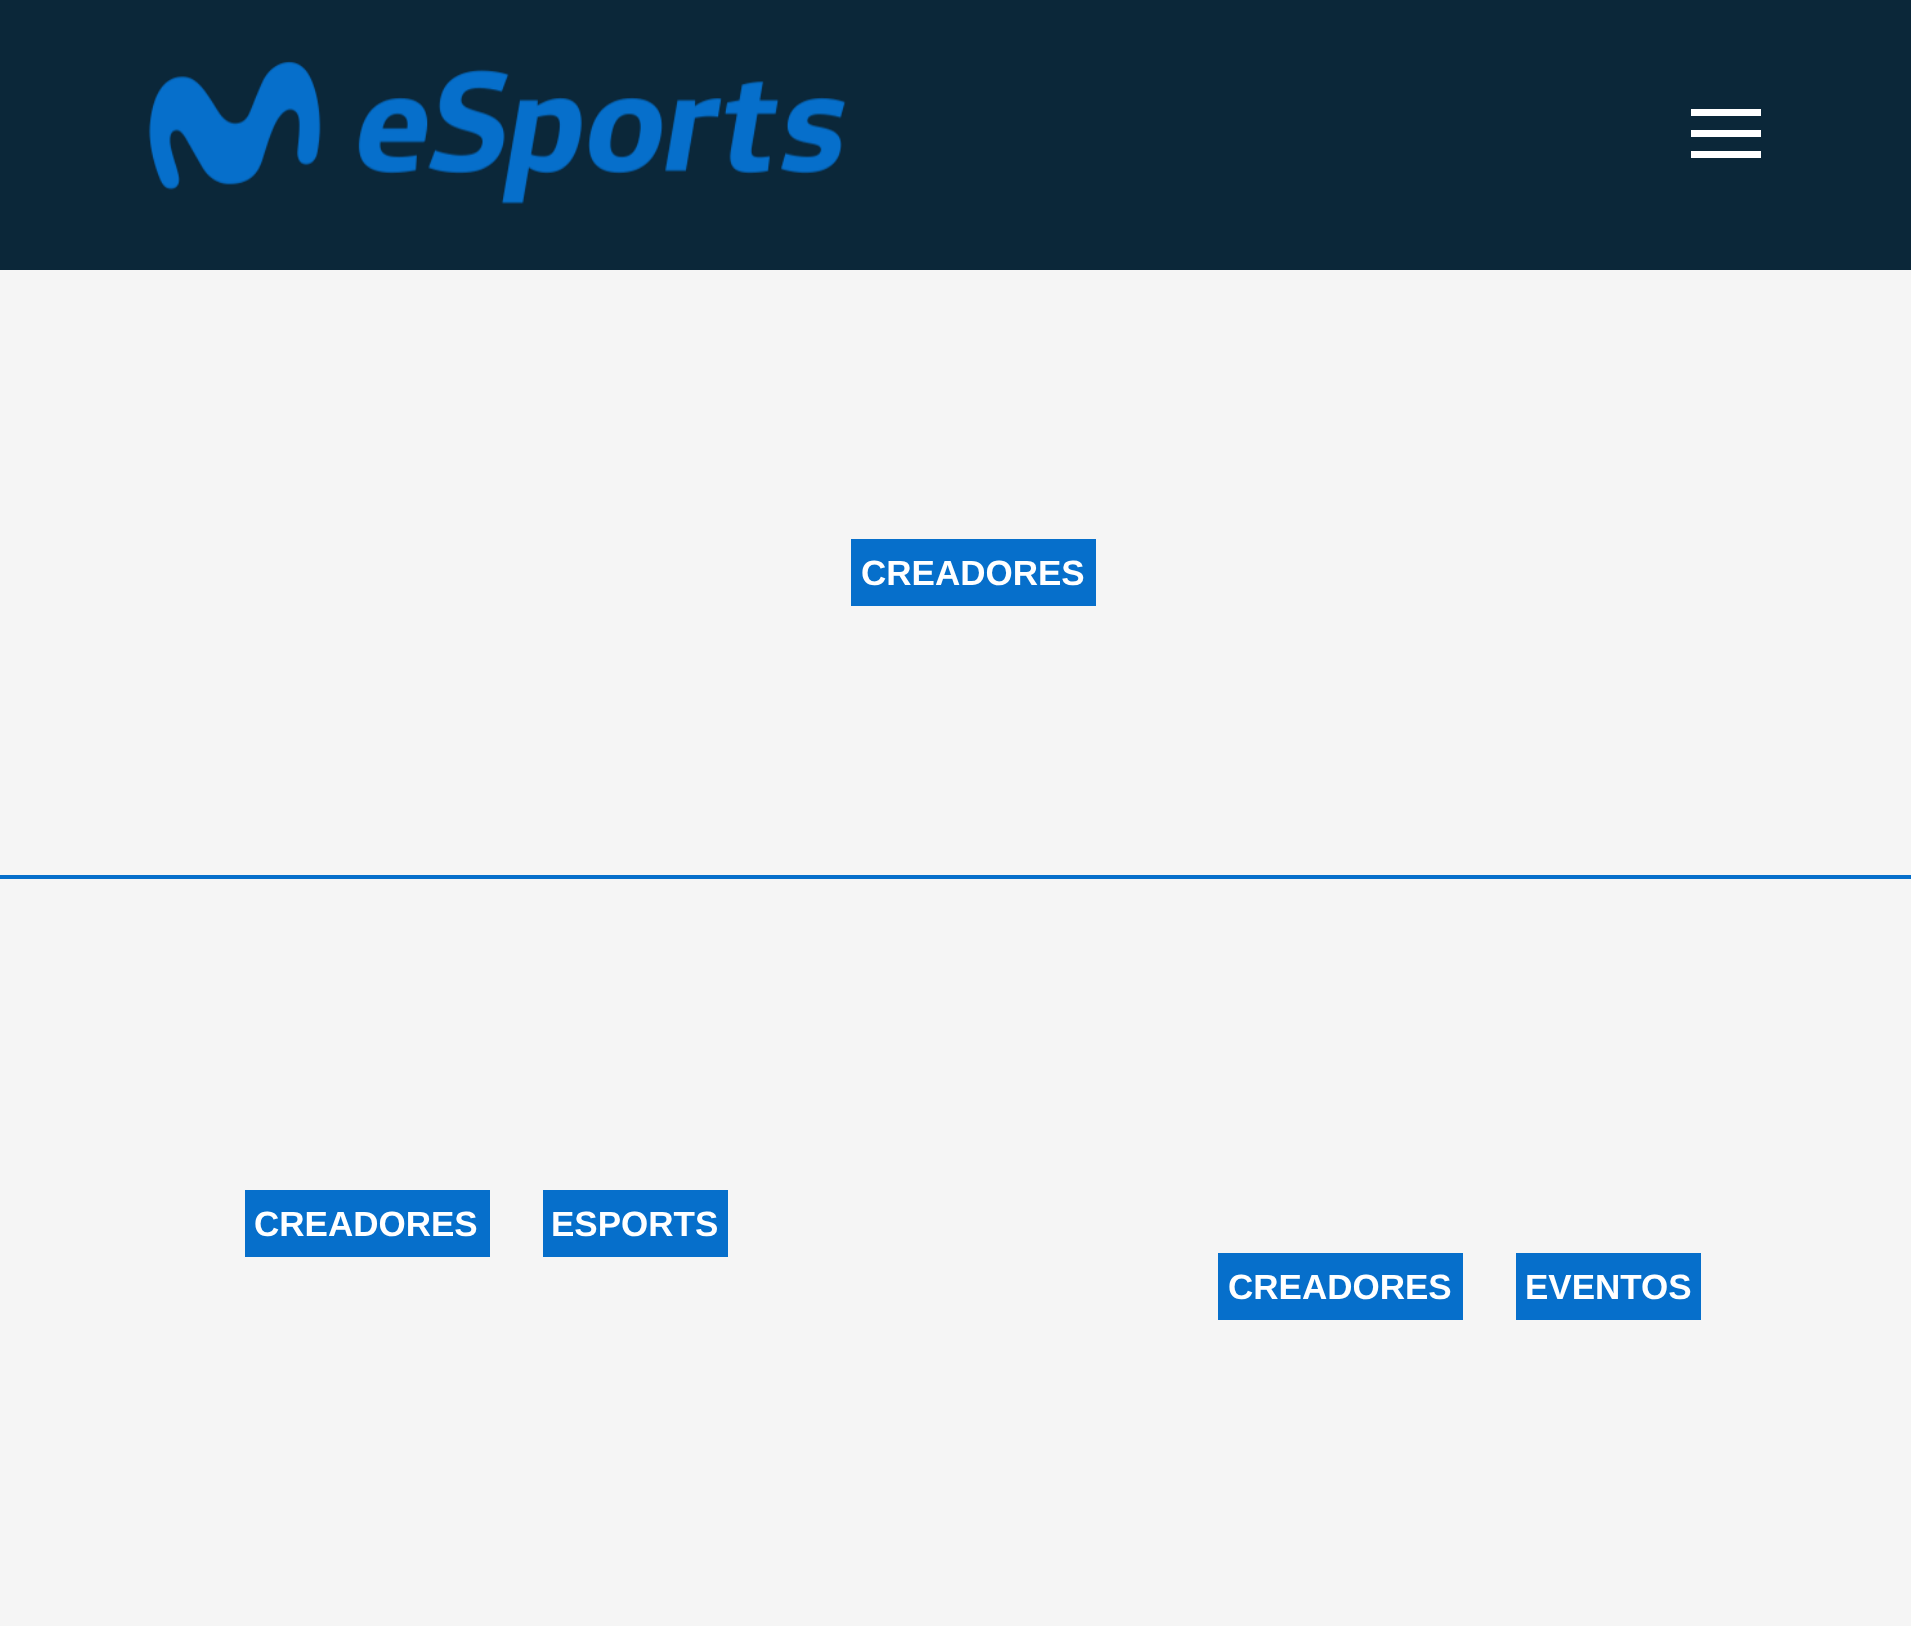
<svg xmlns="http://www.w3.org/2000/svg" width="1911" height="1626">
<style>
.a{font:bold 35px Liberation Sans;fill:#fff}
</style>
<rect width="100%" height="100%" fill="#066fcb"/>
<path fill="#0b2739" d="M0 0h1911v270H0z"/>
<image href="1.png" x="148" y="61" width="698" height="143"/>
<path fill="#fff" d="M1691 109h70v7H1691z"/>
<path fill="#fff" d="M1691 151h70v7H1691z"/>
<path fill="#fff" d="M1691 130h70v7H1691z"/>
<path fill="#f5f5f5" d="M0 270h1911v605H0z"/>
<path fill="#066fcb" d="M851 539h245v67H851z"/>
<path fill="#f5f5f5" d="M0 879h1911v747H0z"/>
<path fill="#066fcb" d="M245 1190h245v67H245z"/>
<path fill="#066fcb" d="M543 1190h185v67H543z"/>
<path fill="#066fcb" d="M1218 1253h245v67H1218z"/>
<path fill="#066fcb" d="M1516 1253h185v67H1516z"/>
<text class="a" x="861" y="585">CREADORES</text>
<text class="a" x="254" y="1236">CREADORES</text>
<text class="a" x="551" y="1236">ESPORTS</text>
<text class="a" x="1228" y="1299">CREADORES</text>
<text class="a" x="1525" y="1299">EVENTOS</text>
</svg>
